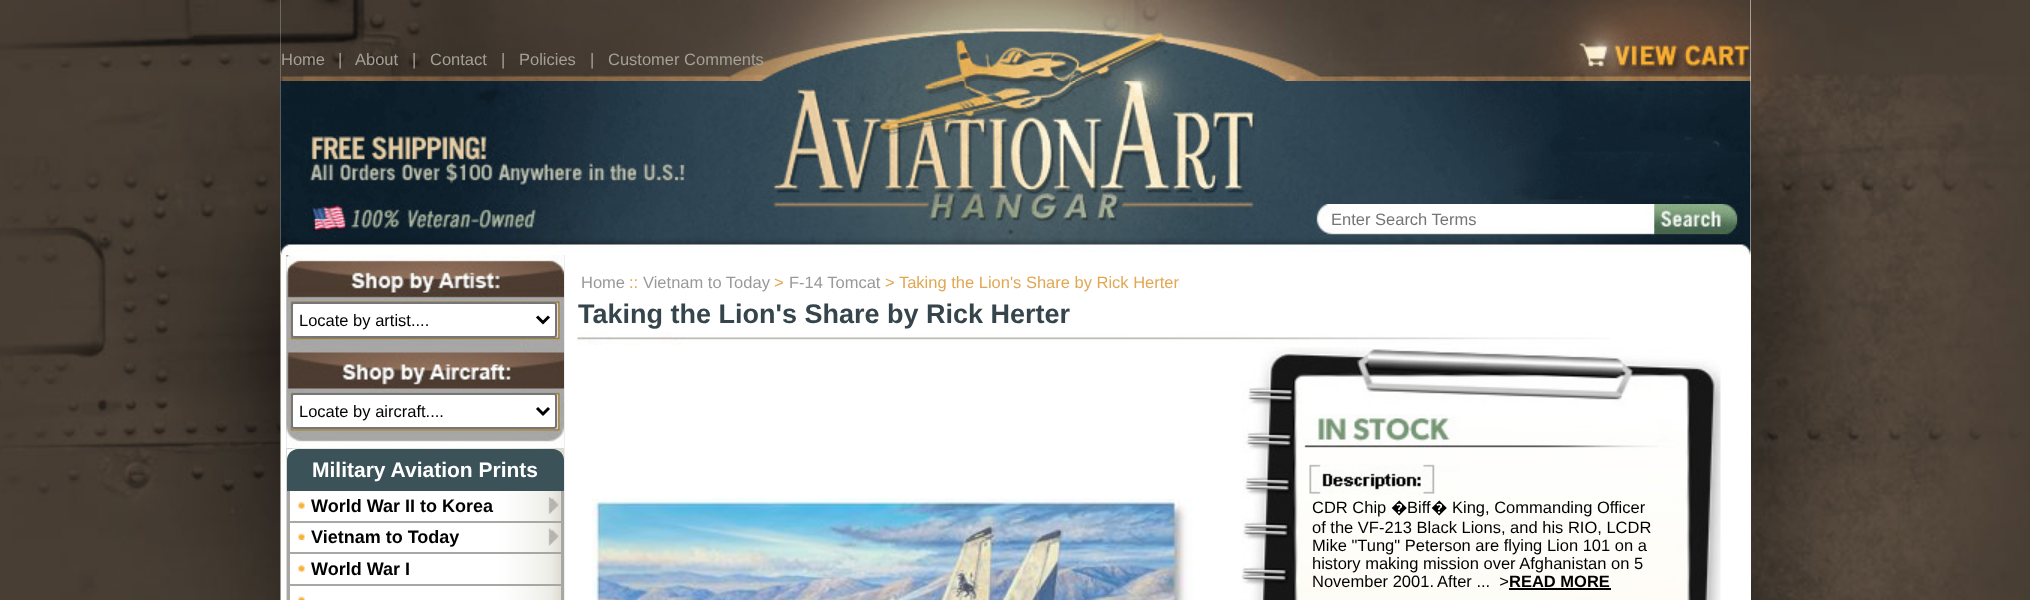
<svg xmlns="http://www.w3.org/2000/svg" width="2030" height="600">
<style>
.a{font:16.5px Liberation Sans;fill:#a4a095}
.b{font:16.5px Liberation Sans;fill:#757575}
.c{font:16.5px Liberation Sans;fill:#000}
.d{font:bold 21px Liberation Sans;fill:#fff}
.e{font:bold 18px Liberation Sans;fill:#000}
.f{font:16.5px Liberation Sans;fill:#999}
.g{font:16.5px Liberation Sans;fill:#e1a753}
.h{font:bold 27px Liberation Sans;fill:#36454c}
.i{font:16.5px Noto Sans;fill:#000}
.j{font:bold 16.5px Liberation Sans;fill:#000}
</style>
<rect width="100%" height="100%" fill="#473d33"/>
<image href="1.png" x="0" y="0" width="2029" height="600"/>
<path fill="#fff" d="M565 0h1186v600H565z"/>
<image href="2.png" x="280" y="0" width="285" height="600"/>
<image href="3.png" x="280" y="0" width="1471" height="81"/>
<image href="4.png" x="280" y="81" width="1471" height="123"/>
<image href="5.png" x="280" y="204" width="1471" height="51"/>
<image href="6.png" x="1654" y="204" width="83" height="30"/>
<image href="7.png" x="286" y="255" width="278" height="194"/>
<rect fill="#fff" stroke="#767676" stroke-width="2" x="292" y="303" width="264" height="34" rx="2"/>
<path fill="none" stroke="#000" stroke-width="3" d="M537 316.5l6 6l6-6"/>
<rect fill="#fff" stroke="#767676" stroke-width="2" x="292" y="394" width="264" height="34" rx="2"/>
<path fill="none" stroke="#000" stroke-width="3" d="M537 408l6 6l6-6"/>
<path fill="#fff" d="M287 449h6v151H287z"/>
<image href="8.png" x="292" y="448" width="272" height="152"/>
<path fill="#3b5259" d="M298 449h255c6 0 11 5 11 11v31h-277v-31c0-6 5-11 11-11z"/>
<image href="9.png" x="298" y="501" width="7" height="8"/>
<path fill="#a8a7a3" d="M561 491h3v31H561z"/>
<path fill="#a8a7a3" d="M287 521h277v2H287z"/>
<path fill="#a8a7a3" d="M287 491h3v31H287z"/>
<image href="10.png" x="548" y="497" width="11" height="17"/>
<image href="11.png" x="298" y="533" width="7" height="7"/>
<path fill="#a8a7a3" d="M561 522h3v63H561z"/>
<path fill="#a8a7a3" d="M287 552h277v2H287z"/>
<path fill="#a8a7a3" d="M287 522h3v32H287z"/>
<image href="12.png" x="548" y="528" width="11" height="18"/>
<image href="9.png" x="298" y="564" width="7" height="8"/>
<path fill="#a8a7a3" d="M287 584h277v2H287z"/>
<path fill="#a8a7a3" d="M287 554h3v46H287z"/>
<image href="13.png" x="298" y="596" width="7" height="4"/>
<path fill="#a8a7a3" d="M561 585h3v15H561z"/>
<image href="14.png" x="577" y="332" width="1033" height="13"/>
<image href="15.png" x="592" y="498" width="601" height="102"/>
<image href="16.png" x="1241" y="347" width="480" height="253"/>
<image href="17.png" x="1304" y="414" width="354" height="35"/>
<image href="18.png" x="1309" y="464" width="126" height="31"/>
<path fill="#000" d="M1509 588h102v2H1509z"/>
<text class="a" x="281" y="65">Home</text>
<text class="a" x="338" y="65">|</text>
<text class="a" x="355" y="65">About</text>
<text class="a" x="412" y="65">|</text>
<text class="a" x="430" y="65">Contact</text>
<text class="a" x="501" y="65">|</text>
<text class="a" x="519" y="65">Policies</text>
<text class="a" x="590" y="65">|</text>
<text class="a" x="608" y="65">Customer Comments</text>
<text class="b" x="1331" y="225">Enter Search Terms</text>
<text class="c" x="299" y="326">Locate by artist....</text>
<text class="c" x="299" y="417">Locate by aircraft....</text>
<text class="d" x="312" y="477">Military Aviation Prints</text>
<text class="e" x="311" y="512">World War II to Korea</text>
<text class="e" x="311" y="543">Vietnam to Today</text>
<text class="e" x="311" y="575">World War I</text>
<text class="f" x="581" y="288">Home</text>
<text class="g" x="629" y="288">::</text>
<text class="f" x="643" y="288">Vietnam to Today</text>
<text class="g" x="774" y="288">&gt;</text>
<text class="f" x="789" y="288">F-14 Tomcat</text>
<text class="g" x="885" y="288">&gt; Taking the Lion's Share by Rick Herter</text>
<text class="h" x="578" y="323">Taking the Lion's Share by Rick Herter</text>
<text class="c" x="1312" y="513">CDR Chip</text>
<text class="i" x="1391" y="513">�</text>
<text class="c" x="1407" y="513">Biff</text>
<text class="i" x="1431" y="513">�</text>
<text class="c" x="1452" y="513">King, Commanding Officer</text>
<text class="c" x="1312" y="533">of the VF-213 Black Lions, and his RIO, LCDR</text>
<text class="c" x="1312" y="551">Mike "Tung" Peterson are flying Lion 101 on a</text>
<text class="c" x="1312" y="569">history making mission over Afghanistan on 5</text>
<text class="c" x="1312" y="587">November 2001.</text>
<text class="c" xml:space="preserve" x="1437" y="587">After ...  &gt;</text>
<text class="j" x="1509" y="587">READ MORE</text>
</svg>
